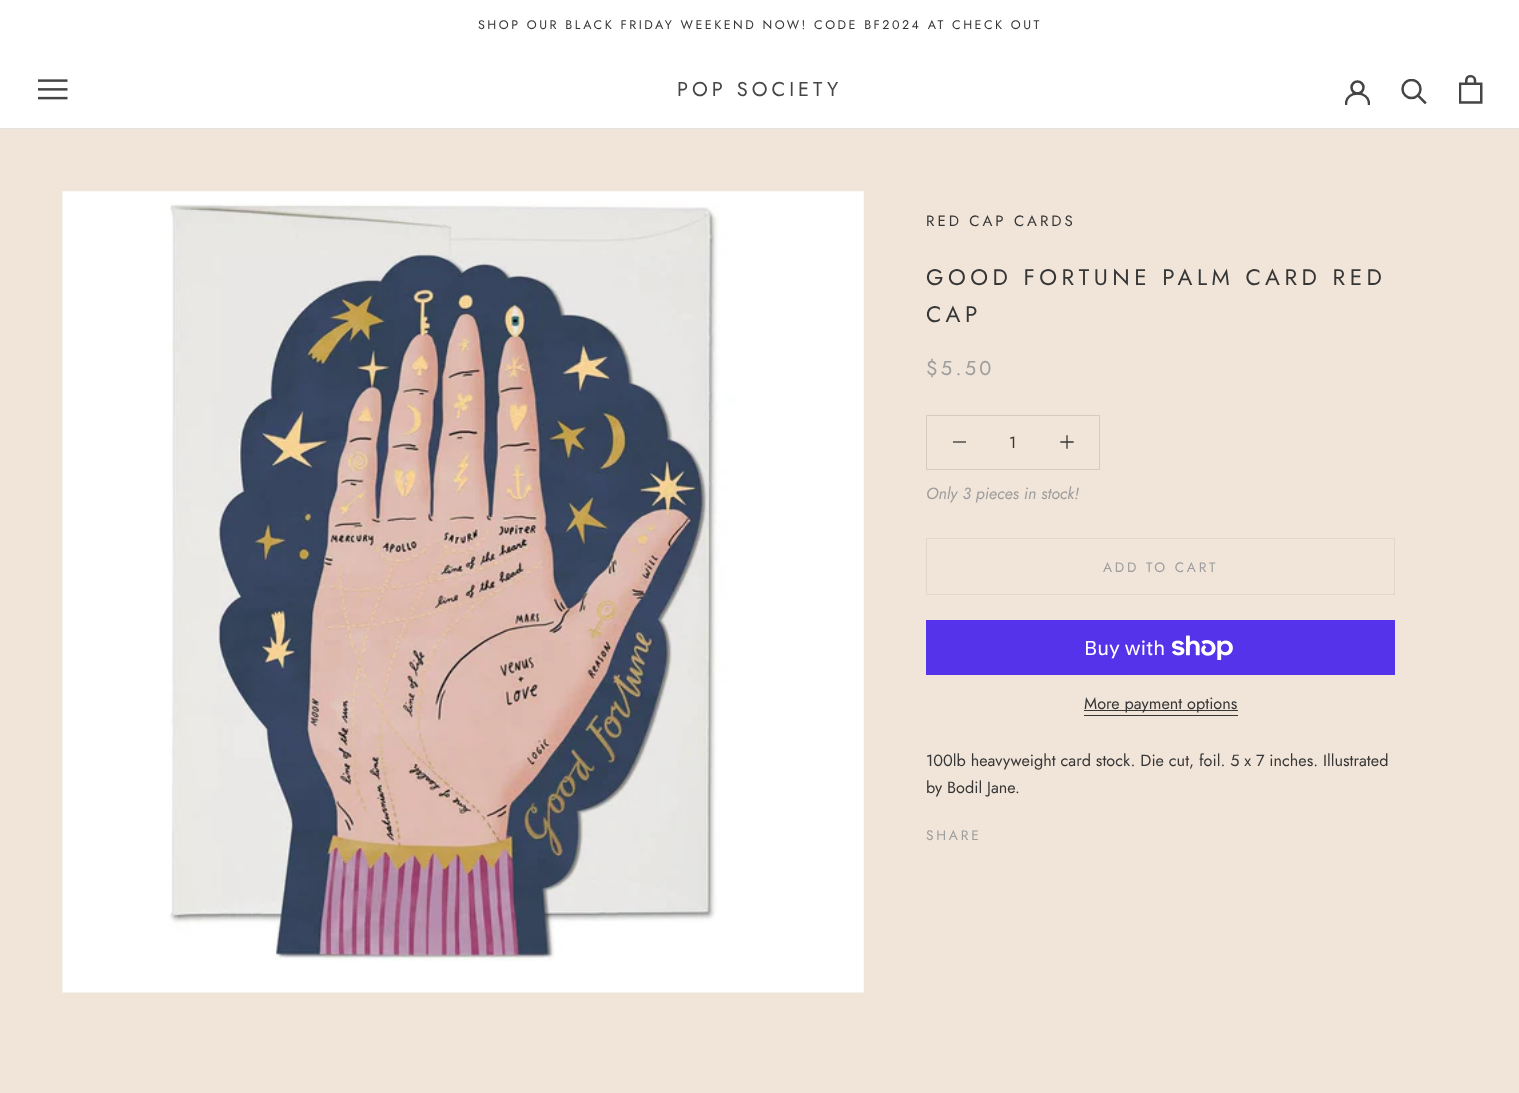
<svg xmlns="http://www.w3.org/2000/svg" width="1519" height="1093">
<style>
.a{font:12.5px Jost;letter-spacing:2.5px;fill:#363636}
.b{font:20px Jost;letter-spacing:4px;fill:#454545}
.c{font:15px Jost;letter-spacing:3px;fill:#363636}
.d{font:22.5px Jost;letter-spacing:4.5px;fill:#363636}
.e{font:20px Jost;letter-spacing:3.25px;fill:#9d9d9d}
.f{font:16.25px Jost;fill:#363636}
.g{font:italic 16.25px Jost;fill:#9d9d9d}
.h{font:13.75px Jost;letter-spacing:2.75px;fill:#9d9d9d}
.i{font:20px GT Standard;fill:#fff}
</style>
<defs>
<clipPath id="clip1"><path d="M1345 80h25v25H1345z"/></clipPath>
<clipPath id="clip2"><path d="M1401 79h27v26H1401z"/></clipPath>
<clipPath id="clip3"><path d="M953 435h13v14H953z"/></clipPath>
</defs>
<rect width="100%" height="100%" fill="#f1e4d8"/>
<path fill="#fff" d="M0 0h1519v128H0z"/>
<path fill="#e3e3e3" d="M0 128h1519v1H0z"/>
<image href="1.png" x="38" y="79" width="30" height="21"/>
<g clip-path="url(#clip1)">
<path fill="none" stroke="#454545" stroke-width="2.5" stroke-linecap="square" d="M1346 104c0-14 23-14 23 0"/>
</g>
<circle fill="none" stroke="#454545" stroke-width="2.5" cx="1357.5" cy="87.5" r="6"/>
<path fill="none" stroke="#454545" stroke-width="2.5" stroke-linecap="square" d="M1425 102.5l-7-7"/>
<g clip-path="url(#clip2)">
<circle fill="none" stroke="#454545" stroke-width="2.5" cx="1411.5" cy="89" r="9"/>
</g>
<image href="2.png" x="1459" y="75" width="24" height="29"/>
<image href="3.png" x="62" y="191" width="802" height="802"/>
<path fill="none" stroke="#d5cac0" d="M926.5 415.5h173v54H926.5z"/>
<g clip-path="url(#clip3)">
<path fill="none" stroke="#363636" stroke-width="1.3" stroke-linecap="square" d="M953.5 442h12"/>
</g>
<path fill="none" stroke="#363636" stroke-width="1.3" stroke-linecap="square" d="M1067 436v12m-6-6h12"/>
<path fill="none" stroke="#e0d6cc" d="M926.5 538.5h468v56H926.5z"/>
<path fill="#5433eb" d="M926 620h469v55H926z"/>
<image href="4.png" x="1171" y="635" width="62" height="25"/>
<path fill="#363636" d="M1084 710h154v1H1084z"/>
<path fill="#363636" d="M1084 715h154v1H1084z"/>
<text class="a" x="478" y="29">SHOP OUR BLACK FRIDAY WEEKEND NOW! CODE BF2024 AT CHECK OUT</text>
<text class="b" x="677" y="96">POP SOCIETY</text>
<text class="c" x="926" y="226">RED CAP CARDS</text>
<text class="d" x="926" y="285">GOOD FORTUNE PALM CARD RED</text>
<text class="d" x="926" y="322">CAP</text>
<text class="e" x="926" y="375">$5.50</text>
<text class="f" x="1009" y="448">1</text>
<text class="g" x="926" y="499">Only 3 pieces in stock!</text>
<text class="h" x="1103" y="572">ADD TO CART</text>
<text class="i" x="1084" y="655">Buy with</text>
<text class="f" x="1084" y="709">More payment options</text>
<text class="f" x="926" y="766">100lb heavyweight card stock. Die cut, foil. 5 x 7 inches. Illustrated</text>
<text class="f" x="926" y="793">by Bodil Jane.</text>
<text class="h" x="926" y="840">SHARE</text>
</svg>
